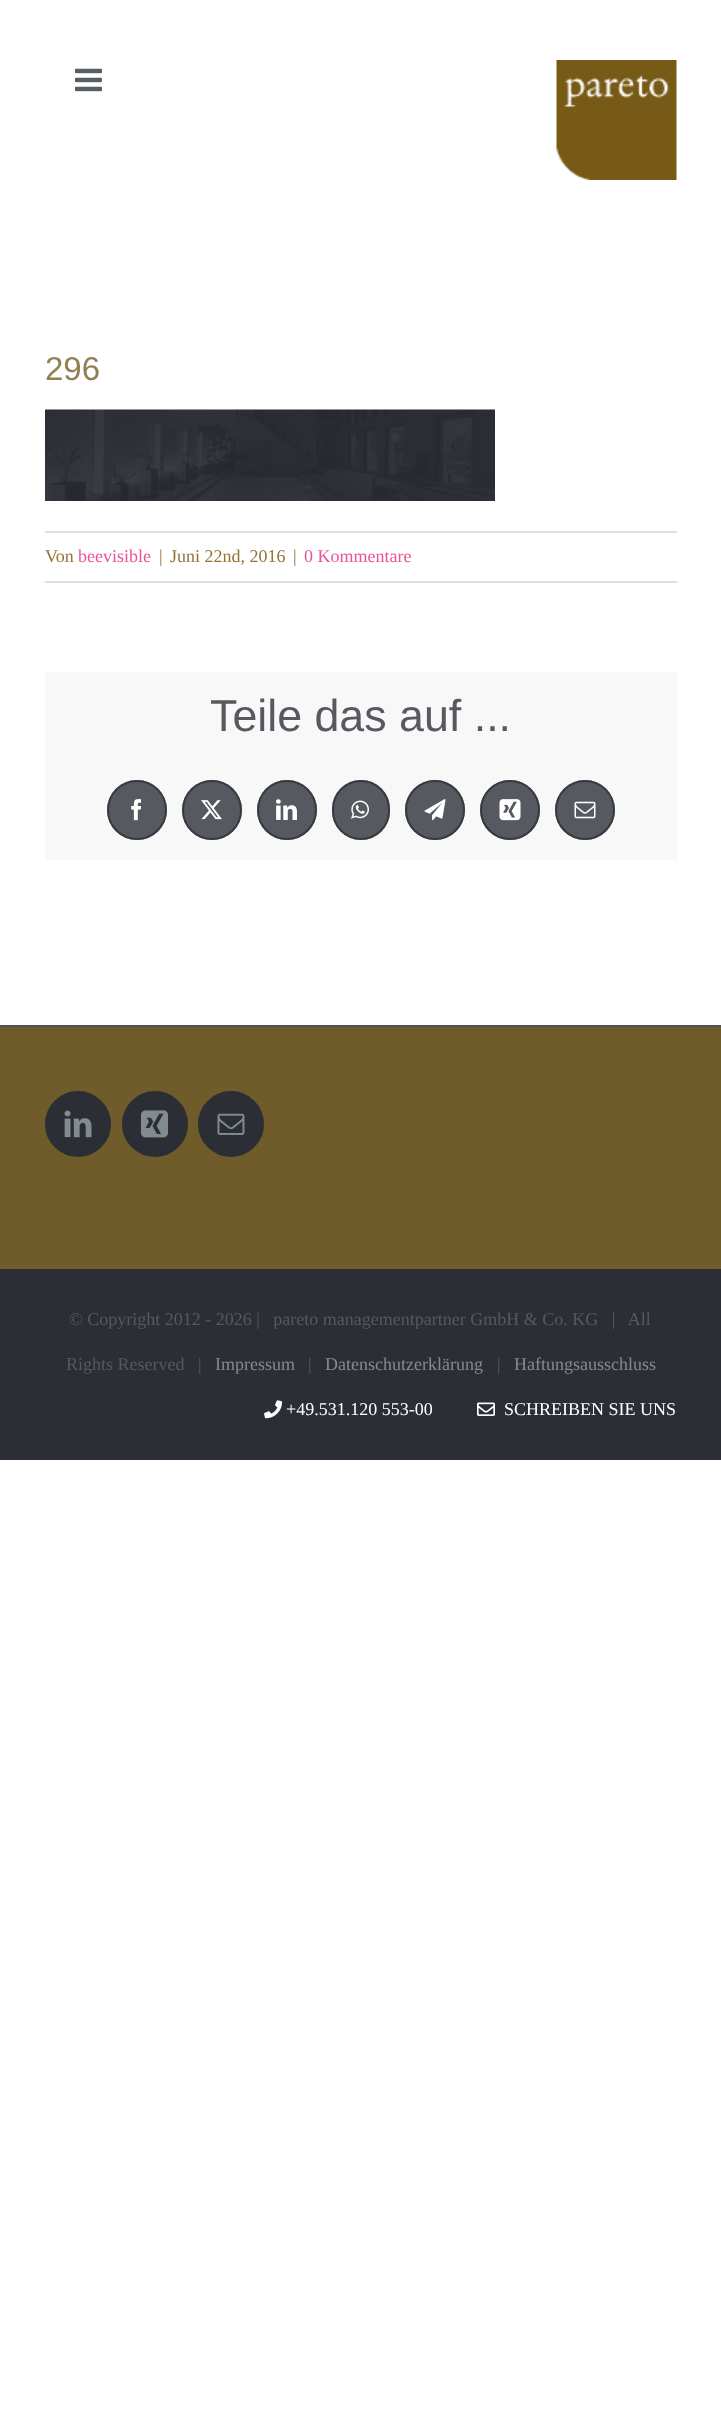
<svg xmlns="http://www.w3.org/2000/svg" width="721" height="2421">
<style>
.a{font:33px Liberation Sans;fill:#918054}
.b{font:18px Liberation Serif;fill:#917435}
.c{font:18px Liberation Serif;fill:#ea5297}
.d{font:44.75px Liberation Sans;fill:#565a60}
.e{font:18px Liberation Serif;fill:#565a60}
.f{font:18px Liberation Serif;fill:#868a92}
.g{font:18px Liberation Serif;fill:#fff}
</style>
<rect width="100%" height="100%" fill="#fff"/>
<image href="1.png" x="75" y="68" width="27" height="24"/>
<image href="2.png" x="556" y="60" width="121" height="120"/>
<image href="3.png" x="45" y="409" width="450" height="92"/>
<path fill="#e0dede" d="M45 531h632v2H45z"/>
<path fill="#e0dede" d="M45 581h632v2H45z"/>
<path fill="#f8f8f8" d="M45 672h632v188H45z"/>
<circle fill="#565a60" cx="137" cy="810" r="30"/>
<circle fill="none" stroke="#2e323acc" stroke-width="2" cx="137" cy="810" r="29"/>
<image href="4.png" x="131" y="799" width="11" height="22"/>
<circle fill="#565a60" cx="212" cy="810" r="30"/>
<circle fill="none" stroke="#2e323acc" stroke-width="2" cx="212" cy="810" r="29"/>
<image href="5.png" x="201" y="800" width="21" height="20"/>
<circle fill="#565a60" cx="287" cy="810" r="30"/>
<circle fill="none" stroke="#2e323acc" stroke-width="2" cx="287" cy="810" r="29"/>
<image href="6.png" x="276" y="799" width="21" height="21"/>
<rect fill="#565a60" x="332" y="780" width="58" height="60" rx="29"/>
<rect fill="none" stroke="#2e323acc" stroke-width="2" x="333" y="781" width="56" height="58" rx="28"/>
<image href="7.png" x="351" y="800" width="18" height="19"/>
<circle fill="#565a60" cx="435" cy="810" r="30"/>
<circle fill="none" stroke="#2e323acc" stroke-width="2" cx="435" cy="810" r="29"/>
<image href="8.png" x="424" y="799" width="22" height="22"/>
<circle fill="#565a60" cx="510" cy="810" r="30"/>
<circle fill="none" stroke="#2e323acc" stroke-width="2" cx="510" cy="810" r="29"/>
<image href="9.png" x="499" y="799" width="22" height="22"/>
<circle fill="#565a60" cx="585" cy="810" r="30"/>
<circle fill="none" stroke="#2e323acc" stroke-width="2" cx="585" cy="810" r="29"/>
<image href="10.png" x="574" y="801" width="22" height="18"/>
<path fill="#705c2a" d="M0 1027h721v242H0z"/>
<path fill="#505152" d="M0 1025h721v2H0z"/>
<circle fill="#2b2e35" stroke="#2b2e35" stroke-width="2" cx="78" cy="1124" r="32"/>
<image href="11.png" x="64" y="1110" width="28" height="28"/>
<circle fill="#2b2e35" stroke="#2b2e35" stroke-width="2" cx="155" cy="1124" r="32"/>
<image href="12.png" x="141" y="1110" width="27" height="28"/>
<circle fill="#2b2e35" stroke="#2b2e35" stroke-width="2" cx="231" cy="1124" r="32"/>
<image href="13.png" x="217" y="1113" width="28" height="22"/>
<path fill="#2b2e35" d="M0 1269h721v191H0z"/>
<image href="14.png" x="264" y="1400" width="18" height="19"/>
<image href="15.png" x="477" y="1402" width="18" height="14"/>
<text class="a" x="45" y="380">296</text>
<text class="b" x="45" y="562">Von</text>
<text class="c" x="78" y="562">beevisible</text>
<text class="b" x="159" y="562">|</text>
<text class="b" x="170" y="562">Juni 22nd, 2016</text>
<text class="b" x="293" y="562">|</text>
<text class="c" x="304" y="562">0 Kommentare</text>
<text class="d" x="210" y="731">Teile das auf ...</text>
<text class="e" xml:space="preserve" x="69" y="1325">© Copyright 2012 - 2026 |   pareto managementpartner GmbH &amp; Co. KG   |   All</text>
<text class="e" xml:space="preserve" x="66" y="1370">Rights Reserved   |</text>
<text class="f" x="215" y="1370">Impressum</text>
<text class="e" x="308" y="1370">|</text>
<text class="f" x="325" y="1370">Datenschutzerklärung</text>
<text class="e" x="497" y="1370">|</text>
<text class="f" x="514" y="1370">Haftungsausschluss</text>
<text class="g" x="286" y="1415">+49.531.120 553-00</text>
<text class="g" x="504" y="1415">SCHREIBEN SIE UNS</text>
</svg>
